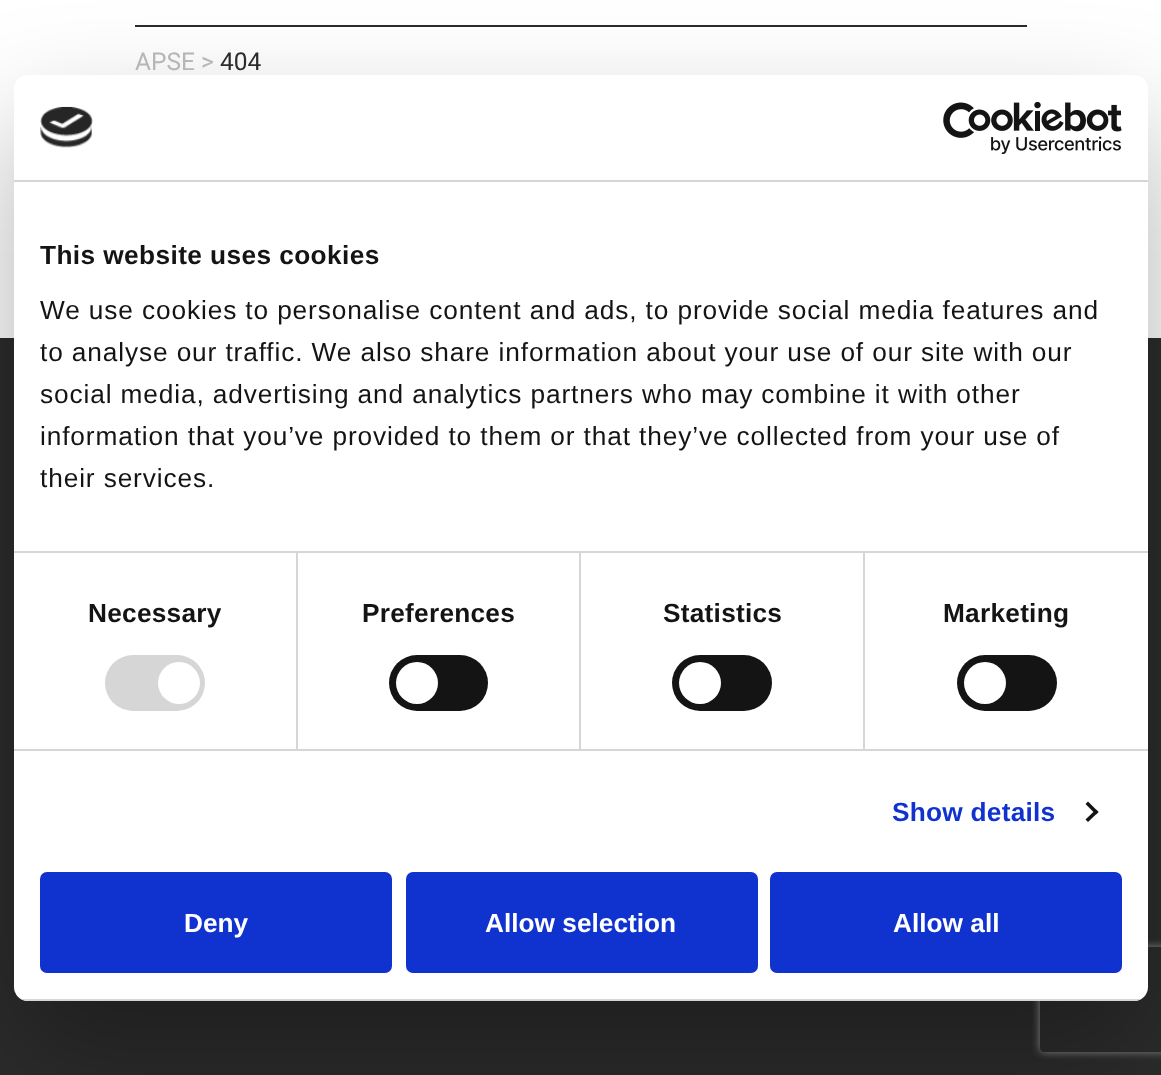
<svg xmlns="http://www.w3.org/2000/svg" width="1161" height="1075">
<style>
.a{font:24.5px Roboto;fill:#b5b6b8}
.b{font:24.5px Roboto;fill:#2c2c2c}
.c{font:bold 26.25px Liberation Sans;letter-spacing:0.4px;fill:#141414}
.d{font:26.25px Liberation Sans;letter-spacing:0.88px;fill:#141414}
.e{font:bold 26.25px Liberation Sans;letter-spacing:0.25px;fill:#141414}
.f{font:bold 26.25px Liberation Sans;letter-spacing:0.25px;fill:#1032cf}
.g{font:bold 26.25px Liberation Sans;fill:#fff}
</style>
<defs>
<clipPath id="clip1"><path d="M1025 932h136v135h-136zm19 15h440c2 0 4 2 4 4v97c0 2-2 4-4 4h-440c-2 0-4-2-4-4v-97c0-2 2-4 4-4z" clip-rule="evenodd"/></clipPath>
<clipPath id="clip2"><rect x="14" y="75" width="1134" height="926" rx="14"/></clipPath>
</defs>
<rect width="100%" height="100%" fill="#fff"/>
<path fill="#2c2c2c" d="M135 25h892v2H135z"/>
<path fill="#2c2c2c" d="M0 338h1161v737H0z"/>
<rect fill="#0000004d" filter="blur(59.5px)" x="14" y="131" width="1134" height="926" rx="14"/>
<g clip-path="url(#clip1)">
<rect fill="#808080" filter="blur(4.5px)" x="1040" y="947" width="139" height="105" rx="4"/>
</g>
<rect fill="#fff" x="14" y="75" width="1134" height="926" rx="14"/>
<path fill="#d6d6d6" d="M14 180h1134v2H14z"/>
<image href="1.png" x="40" y="106" width="53" height="42"/>
<image href="2.png" x="943" y="102" width="179" height="52"/>
<path fill="#d6d6d6" d="M14 551h1134v2H14z"/>
<path fill="#d6d6d6" d="M14 749h1134v2H14z"/>
<path fill="#d6d6d6" d="M296 553h2v196H296z"/>
<rect fill="#d6d6d6" x="105" y="655" width="100" height="56" rx="28"/>
<circle fill="#fff" cx="179" cy="683" r="21"/>
<path fill="#d6d6d6" d="M579 553h2v196H579z"/>
<rect fill="#141414" x="389" y="655" width="99" height="56" rx="28"/>
<circle fill="#fff" cx="417" cy="683" r="21"/>
<path fill="#d6d6d6" d="M863 553h2v196H863z"/>
<rect fill="#141414" x="672" y="655" width="100" height="56" rx="28"/>
<circle fill="#fff" cx="700" cy="683" r="21"/>
<rect fill="#141414" x="957" y="655" width="100" height="56" rx="28"/>
<circle fill="#fff" cx="985" cy="683" r="21"/>
<path fill="#141414" d="M1088 801.5l10.5 10.5l-2.5 2.5l-10.5-10.5z"/>
<path fill="#141414" d="M1096 809.5l2.5 2.5l-10.5 10l-2.5-2.5z"/>
<g clip-path="url(#clip2)">
<path fill="#d6d6d6" d="M14 999h1134v2H14z"/>
</g>
<rect fill="#1032cf" stroke="#1032cf" stroke-width="4" x="42" y="874" width="348" height="97" rx="5"/>
<rect fill="#1032cf" stroke="#1032cf" stroke-width="4" x="408" y="874" width="348" height="97" rx="5"/>
<rect fill="#1032cf" stroke="#1032cf" stroke-width="4" x="772" y="874" width="348" height="97" rx="5"/>
<text class="a" x="135" y="70">APSE &gt;</text>
<text class="b" x="220" y="70">404</text>
<text class="c" x="40" y="264">This website uses cookies</text>
<text class="d" x="40" y="319">We use cookies to personalise content and ads, to provide social media features and</text>
<text class="d" x="40" y="361">to analyse our traffic. We also share information about your use of our site with our</text>
<text class="d" x="40" y="403">social media, advertising and analytics partners who may combine it with other</text>
<text class="d" x="40" y="445">information that you’ve provided to them or that they’ve collected from your use of</text>
<text class="d" x="40" y="487">their services.</text>
<text class="e" x="88" y="622">Necessary</text>
<text class="e" x="362" y="622">Preferences</text>
<text class="e" x="663" y="622">Statistics</text>
<text class="e" x="943" y="622">Marketing</text>
<text class="f" x="892" y="821">Show details</text>
<text class="g" x="184" y="932">Deny</text>
<text class="g" x="485" y="932">Allow selection</text>
<text class="g" x="893" y="932">Allow all</text>
</svg>
